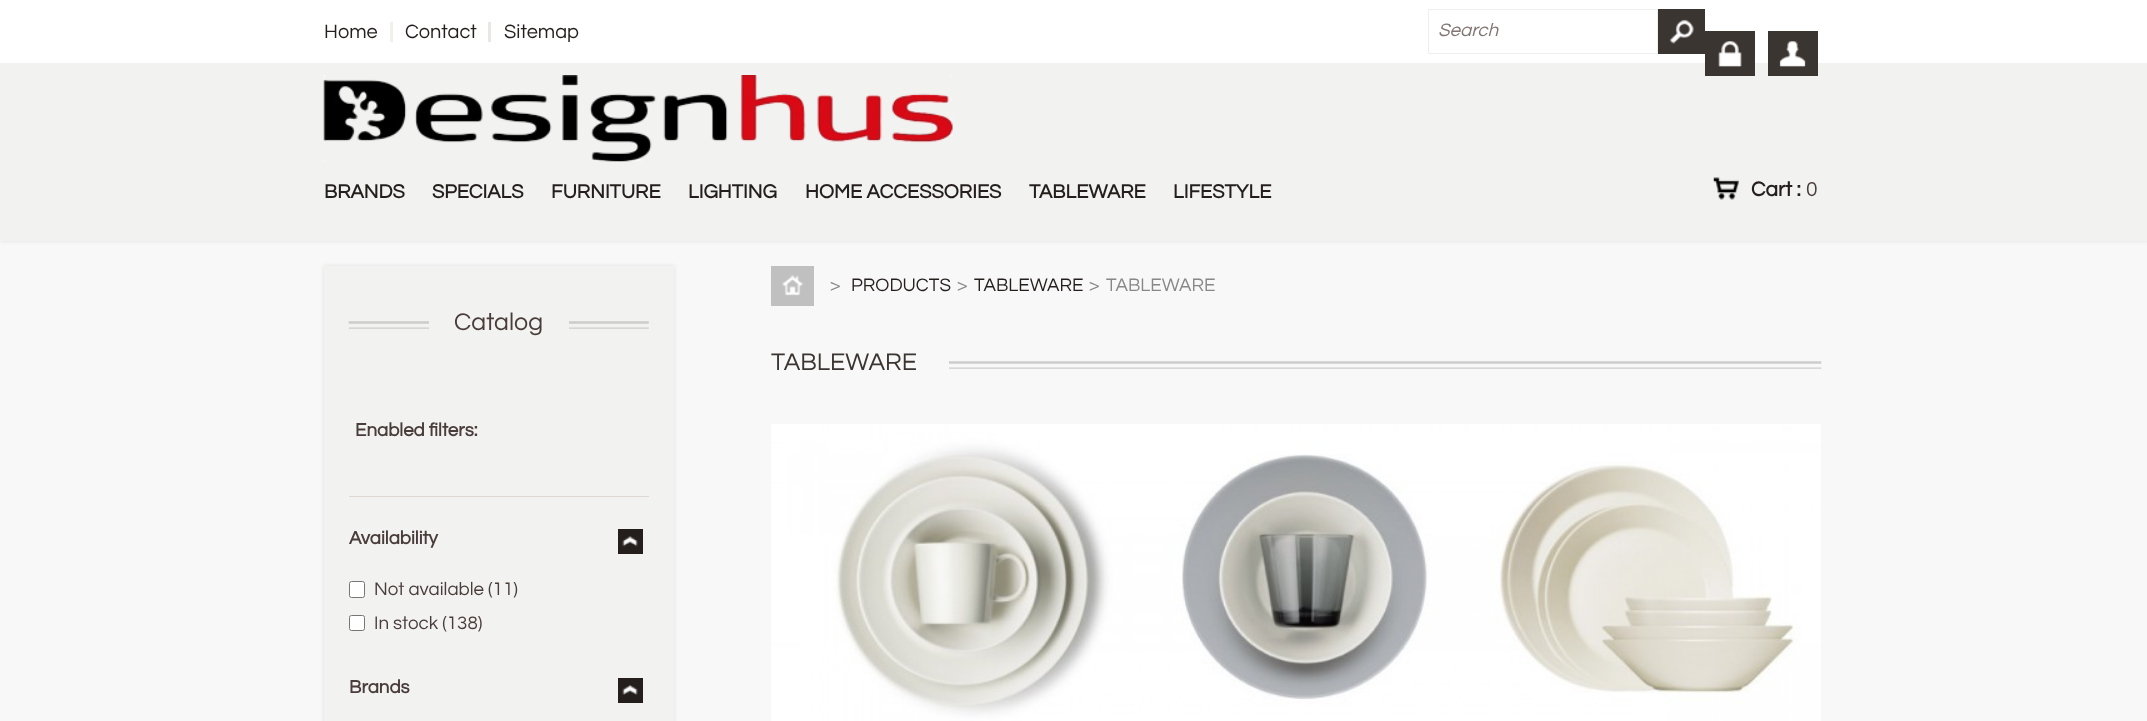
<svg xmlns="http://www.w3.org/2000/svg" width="2147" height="721">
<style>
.a{font:20px Questrial;fill:#241f1d}
.b{font:italic 18.75px Questrial;fill:#807572}
.c{font:bold 21px Questrial;fill:#241f1d}
.d{font:21px Questrial;fill:#493d3b}
.e{font:bold 20px Questrial;fill:#241f1d}
.f{font:25px Questrial;fill:#493d3b}
.g{font:bold 18.75px Questrial;fill:#493d3b}
.h{font:18.75px Questrial;fill:#493d3b}
.i{font:18.75px Questrial;fill:#888}
.j{font:18.75px Questrial;fill:#241f1d}
.k{font:25px Questrial;fill:#3b3532}
</style>
<rect width="100%" height="100%" fill="#f8f8f8"/>
<path fill="#0000001a" filter="blur(2px)" d="M0 0h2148v241H0z"/>
<path fill="#f2f2f0" d="M0 63h2147v178H0z"/>
<path fill="#fff" d="M0 0h2147v63H0z"/>
<path fill="#f0f1ed" d="M390 22h3v20H390z"/>
<path fill="#e8e9e5" d="M488 22h3v20H488z"/>
<path fill="none" stroke="#eee" d="M1428.5 9.5h229v44H1428.5z"/>
<path fill="#3b3532" d="M1658 9h47v45H1658z"/>
<image href="1.png" x="1669" y="19" width="25" height="25"/>
<image href="2.png" x="323" y="75" width="630" height="87"/>
<path fill="#3b3532" d="M1705 31h50v45H1705z"/>
<path fill="#3b3532" d="M1768 31h50v45H1768z"/>
<image href="3.png" x="1718" y="41" width="24" height="26"/>
<image href="4.png" x="1779" y="41" width="27" height="26"/>
<image href="5.png" x="1713" y="177" width="26" height="23"/>
<path fill="#0000001a" filter="blur(2px)" d="M324 266h350v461H324z"/>
<path fill="#f2f2f0" d="M324 266h350v455H324z"/>
<image href="6.png" x="348" y="321" width="301" height="8"/>
<path fill="#f2f2f0" d="M429 321h140v8H429z"/>
<path fill="#dfd8d2" d="M349 496h300v1H349z"/>
<path fill="#241f1d" d="M618 529h25v25H618z"/>
<image href="7.png" x="622" y="536" width="16" height="11"/>
<rect fill="#fff" stroke="#767676" x="349.5" y="581.5" width="15" height="16" rx="2"/>
<rect fill="#fff" stroke="#767676" x="349.5" y="615.5" width="15" height="15" rx="2"/>
<path fill="#241f1d" d="M618 678h25v25H618z"/>
<image href="8.png" x="622" y="685" width="16" height="10"/>
<path fill="#c0c0c0" d="M771 266h43v40H771z"/>
<image href="9.png" x="782" y="275" width="21" height="21"/>
<image href="10.png" x="949" y="361" width="873" height="8"/>
<image href="11.png" x="771" y="424" width="1050" height="297"/>
<text class="a" x="324" y="38">Home</text>
<text class="a" x="405" y="38">Contact</text>
<text class="a" x="504" y="38">Sitemap</text>
<text class="b" x="1438" y="36">Search</text>
<text class="c" x="1751" y="196">Cart :</text>
<text class="d" x="1806" y="196">0</text>
<text class="e" x="324" y="198">BRANDS</text>
<text class="e" x="432" y="198">SPECIALS</text>
<text class="e" x="551" y="198">FURNITURE</text>
<text class="e" x="688" y="198">LIGHTING</text>
<text class="e" x="805" y="198">HOME ACCESSORIES</text>
<text class="e" x="1029" y="198">TABLEWARE</text>
<text class="e" x="1173" y="198">LIFESTYLE</text>
<text class="f" x="454" y="330">Catalog</text>
<text class="g" x="355" y="436">Enabled filters:</text>
<text class="g" x="349" y="544">Availability</text>
<text class="h" x="374" y="595">Not available (11)</text>
<text class="h" x="374" y="629">In stock (138)</text>
<text class="g" x="349" y="693">Brands</text>
<text class="i" x="830" y="291">&gt;</text>
<text class="j" x="851" y="291">PRODUCTS</text>
<text class="i" x="957" y="291">&gt;</text>
<text class="j" x="974" y="291">TABLEWARE</text>
<text class="i" x="1089" y="291">&gt;</text>
<text class="i" x="1106" y="291">TABLEWARE</text>
<text class="k" x="771" y="370">TABLEWARE</text>
</svg>
